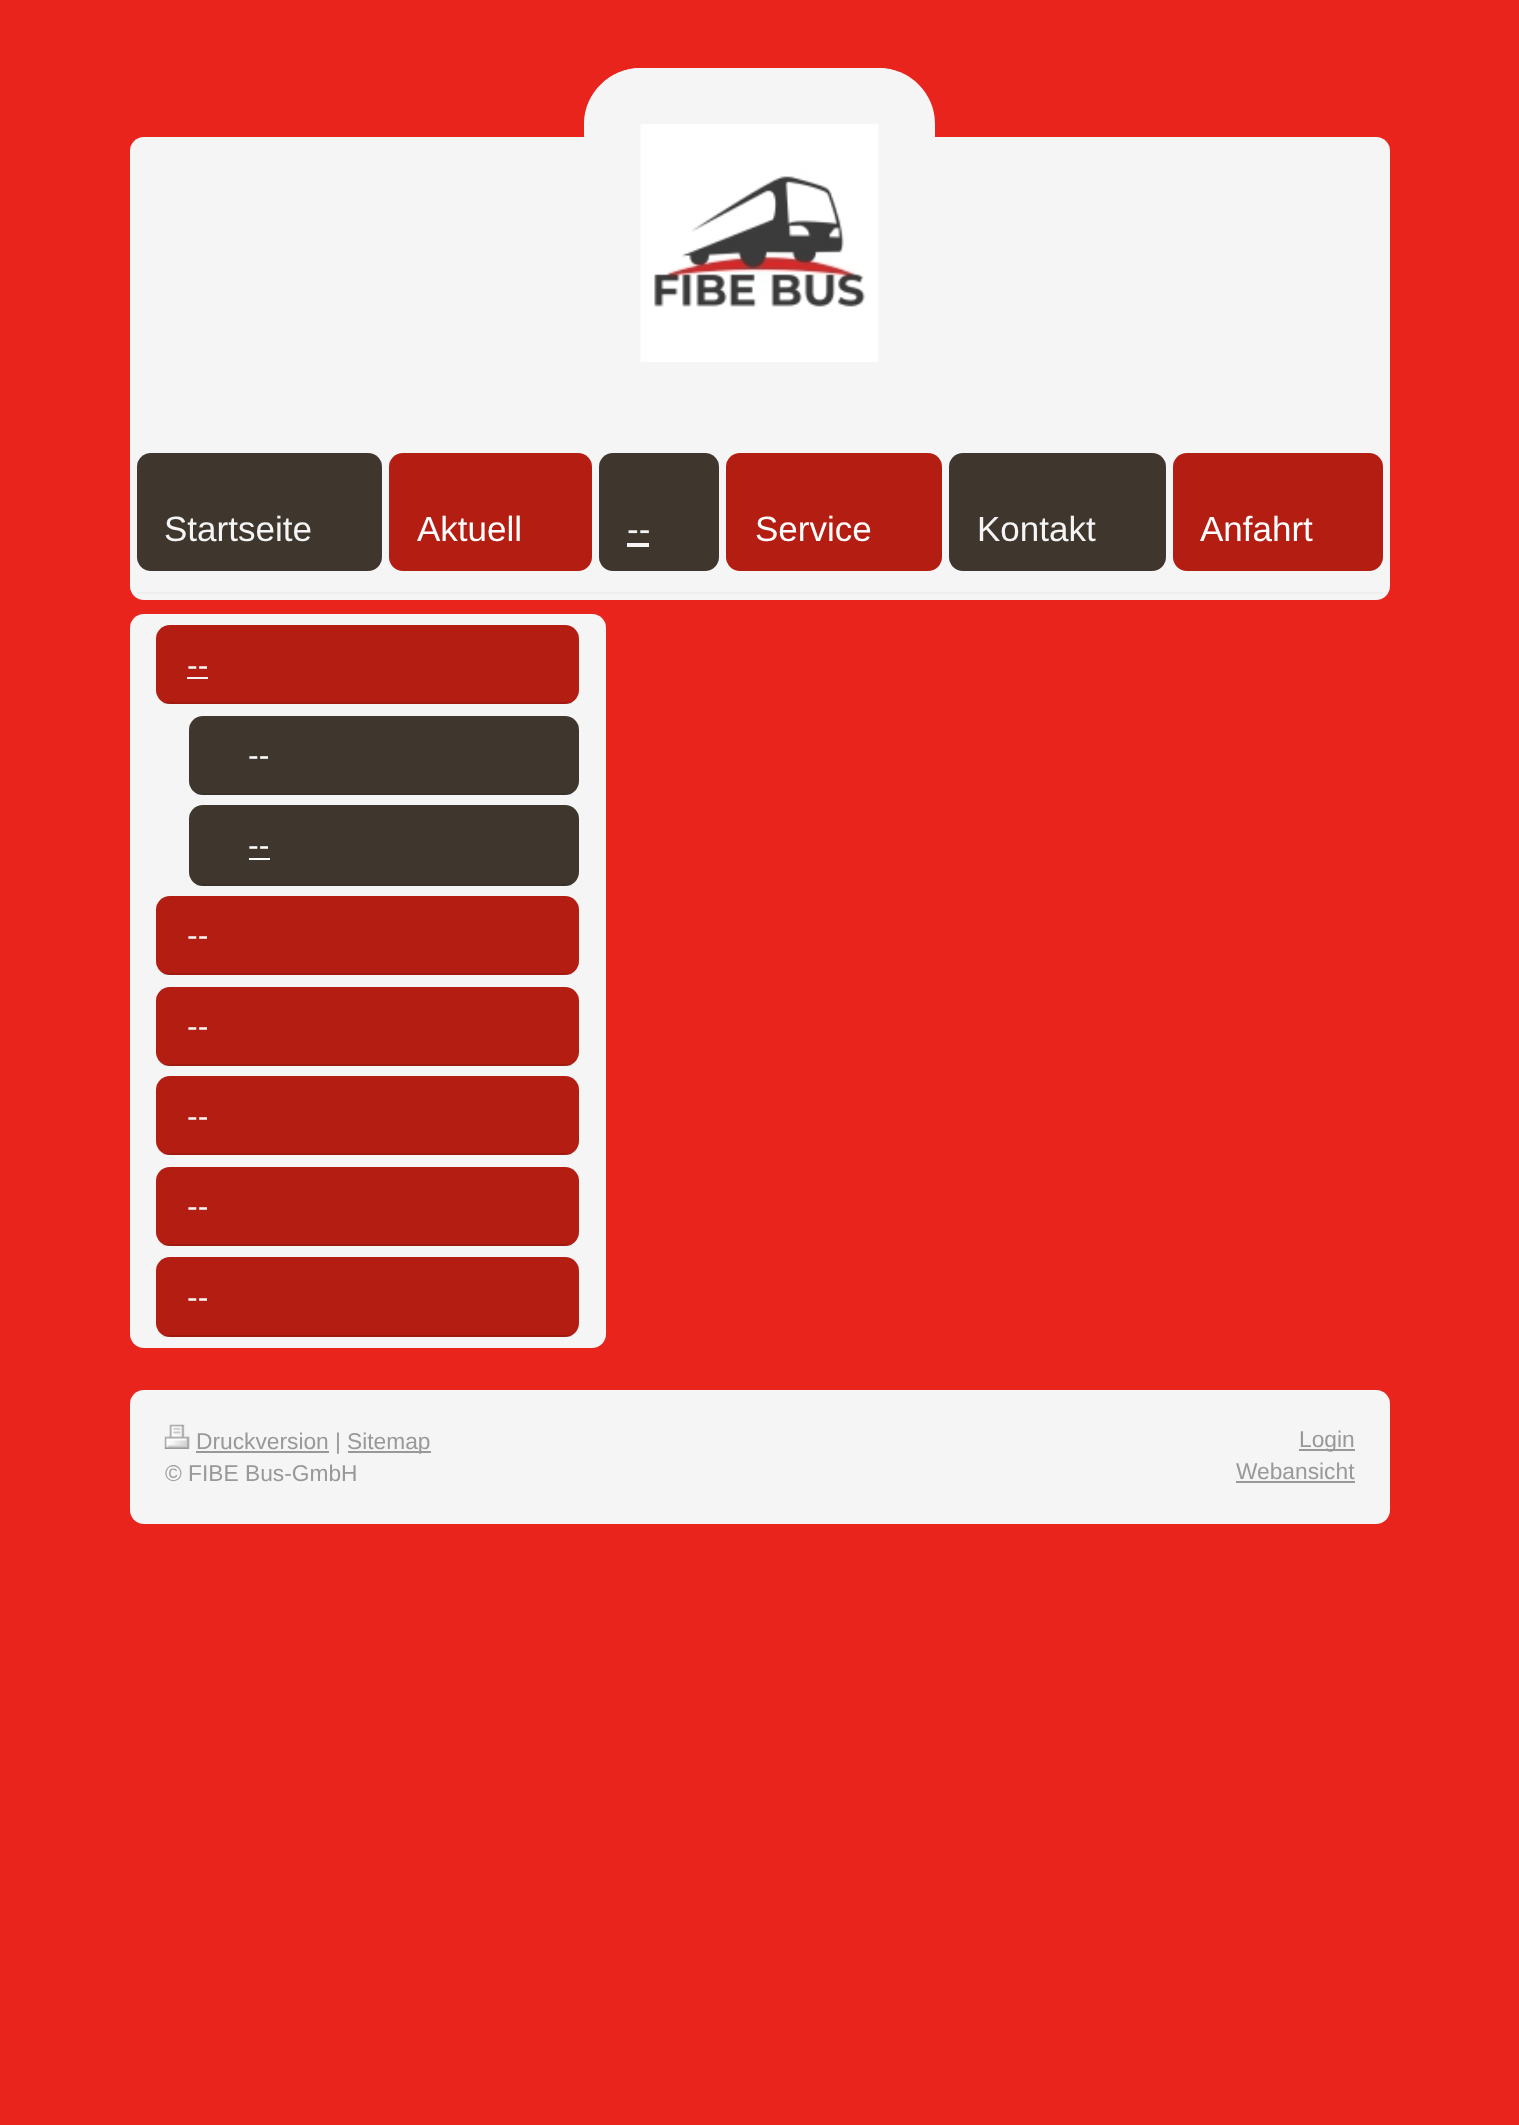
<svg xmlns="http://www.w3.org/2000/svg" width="1519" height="2125">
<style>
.a{font:35px Liberation Sans;fill:#f5f5f5}
.b{font:35px Liberation Sans;fill:#fff}
.c{font:32px Liberation Sans;fill:#f5f5f5}
.d{font:32px Liberation Sans;fill:#fff}
.e{font:22.75px Liberation Sans;fill:#999}
</style>
<rect width="100%" height="100%" fill="#e8241d"/>
<rect fill="#f5f5f5" x="130" y="137" width="1260" height="463" rx="14"/>
<rect fill="#f5f5f5" x="585" y="68" width="350" height="294" rx="56"/>
<path fill="#f5f5f5" fill-rule="evenodd" d="M640 68h238c31 0 56 25 56 56v182c0 31-25 56-56 56h-238c-30 0-56-25-56-56v-182c0-31 26-56 56-56zm0 56h238v238h-238v-56z"/>
<image href="1.png" x="640" y="124" width="239" height="238"/>
<rect fill="#3f372e" x="137" y="453" width="245" height="118" rx="14"/>
<rect fill="#b31d12" x="389" y="453" width="203" height="118" rx="14"/>
<rect fill="#3f372e" x="599" y="453" width="120" height="118" rx="14"/>
<path fill="#f5f5f5" d="M627 543h22v4H627z"/>
<rect fill="#b31d12" x="726" y="453" width="216" height="118" rx="14"/>
<rect fill="#3f372e" x="949" y="453" width="217" height="118" rx="14"/>
<rect fill="#b31d12" x="1173" y="453" width="210" height="118" rx="14"/>
<rect fill="#eee" x="137" y="592" width="1246" height="2" rx="1"/>
<rect fill="#f5f5f5" x="130" y="614" width="476" height="734" rx="14"/>
<rect fill="#b31d12" x="156" y="625" width="423" height="79" rx="14"/>
<path fill="#0000001a" d="M163 702h409v2H163z"/>
<path fill="#f5f5f5" d="M187 677h21v2H187z"/>
<rect fill="#3f372e" x="189" y="716" width="390" height="79" rx="14"/>
<path fill="#0000001a" d="M196 793h376v2H196z"/>
<rect fill="#3f372e" x="189" y="805" width="390" height="81" rx="14"/>
<path fill="#0000001a" d="M196 884h376v2H196z"/>
<path fill="#fff" d="M249 858h21v2H249z"/>
<rect fill="#b31d12" x="156" y="896" width="423" height="79" rx="14"/>
<path fill="#0000001a" d="M163 973h409v2H163z"/>
<rect fill="#b31d12" x="156" y="987" width="423" height="79" rx="14"/>
<path fill="#0000001a" d="M163 1064h409v2H163z"/>
<rect fill="#b31d12" x="156" y="1076" width="423" height="79" rx="14"/>
<path fill="#0000001a" d="M163 1153h409v2H163z"/>
<rect fill="#b31d12" x="156" y="1167" width="423" height="79" rx="14"/>
<path fill="#0000001a" d="M163 1244h409v2H163z"/>
<rect fill="#b31d12" x="156" y="1257" width="423" height="80" rx="14"/>
<path fill="#0000001a" d="M163 1335h409v2H163z"/>
<rect fill="#f5f5f5" x="130" y="1390" width="1260" height="134" rx="14"/>
<image href="2.png" x="164" y="1424" width="26" height="25"/>
<path fill="#999" d="M196 1451h133v2H196z"/>
<path fill="#999" d="M348 1451h83v2H348z"/>
<path fill="#999" d="M1299 1449h56v2H1299z"/>
<path fill="#999" d="M1236 1481h119v2H1236z"/>
<text class="a" x="164" y="541">Startseite</text>
<text class="b" x="417" y="541">Aktuell</text>
<text class="a" x="627" y="541">--</text>
<text class="b" x="755" y="541">Service</text>
<text class="a" x="977" y="541">Kontakt</text>
<text class="b" x="1200" y="541">Anfahrt</text>
<text class="c" x="187" y="676">--</text>
<text class="d" x="248" y="766">--</text>
<text class="d" x="248" y="856">--</text>
<text class="c" x="187" y="946">--</text>
<text class="c" x="187" y="1037">--</text>
<text class="c" x="187" y="1127">--</text>
<text class="c" x="187" y="1217">--</text>
<text class="c" x="187" y="1308">--</text>
<text class="e" x="196" y="1449">Druckversion |</text>
<text class="e" x="347" y="1449">Sitemap</text>
<text class="e" x="165" y="1481">© FIBE Bus-GmbH</text>
<text class="e" x="1299" y="1447">Login</text>
<text class="e" x="1236" y="1479">Webansicht</text>
</svg>
